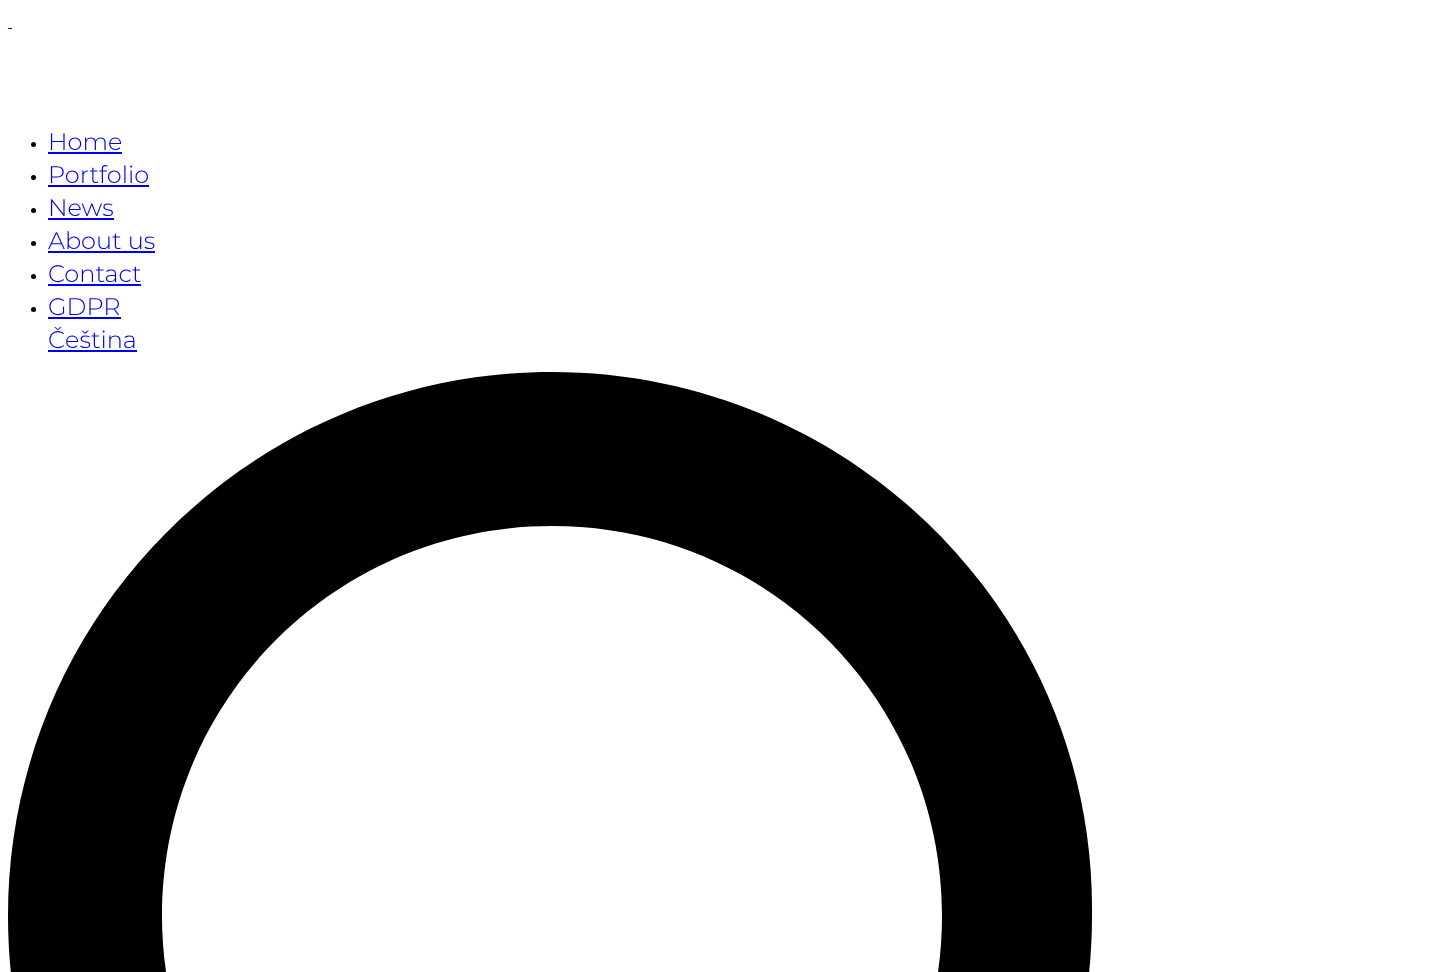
<svg xmlns="http://www.w3.org/2000/svg" width="1454" height="972">
<style>
.a{font:300 24px Montserrat;fill:#00e}
</style>
<rect width="100%" height="100%" fill="#fff"/>
<path fill="#00e" d="M8 28h4v1H8z"/>
<circle fill="#000" cx="33.5" cy="144.5" r="2.5"/>
<path fill="#00e" d="M48 152h74v2H48z"/>
<circle fill="#000" cx="33.5" cy="177.5" r="2.5"/>
<path fill="#00e" d="M48 185h101v2H48z"/>
<circle fill="#000" cx="33.5" cy="210.5" r="2.5"/>
<path fill="#00e" d="M48 218h66v2H48z"/>
<circle fill="#000" cx="33.5" cy="243.5" r="2.5"/>
<path fill="#00e" d="M48 251h107v2H48z"/>
<circle fill="#000" cx="33.5" cy="276.5" r="2.5"/>
<path fill="#00e" d="M48 284h93v2H48z"/>
<circle fill="#000" cx="33.5" cy="309.5" r="2.5"/>
<path fill="#00e" d="M48 317h73v2H48z"/>
<path fill="#00e" d="M48 350h89v2H48z"/>
<path fill="#000" d="M1420 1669l-433-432c66-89 105-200 105-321c4-302-242-544-540-544c-298 0-544 242-544 544c0 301 242 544 544 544c121 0 232-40 321-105l432 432c33 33 85 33 115 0c33-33 33-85 0-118zm-1258-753c0-216 174-390 390-390c216 0 390 174 390 390c0 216-174 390-390 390c-216 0-390-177-390-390z"/>
<text class="a" x="48" y="150">Home</text>
<text class="a" x="48" y="183">Portfolio</text>
<text class="a" x="48" y="216">News</text>
<text class="a" x="48" y="249">About us</text>
<text class="a" x="48" y="282">Contact</text>
<text class="a" x="48" y="315">GDPR</text>
<text class="a" x="48" y="348">Čeština</text>
</svg>
